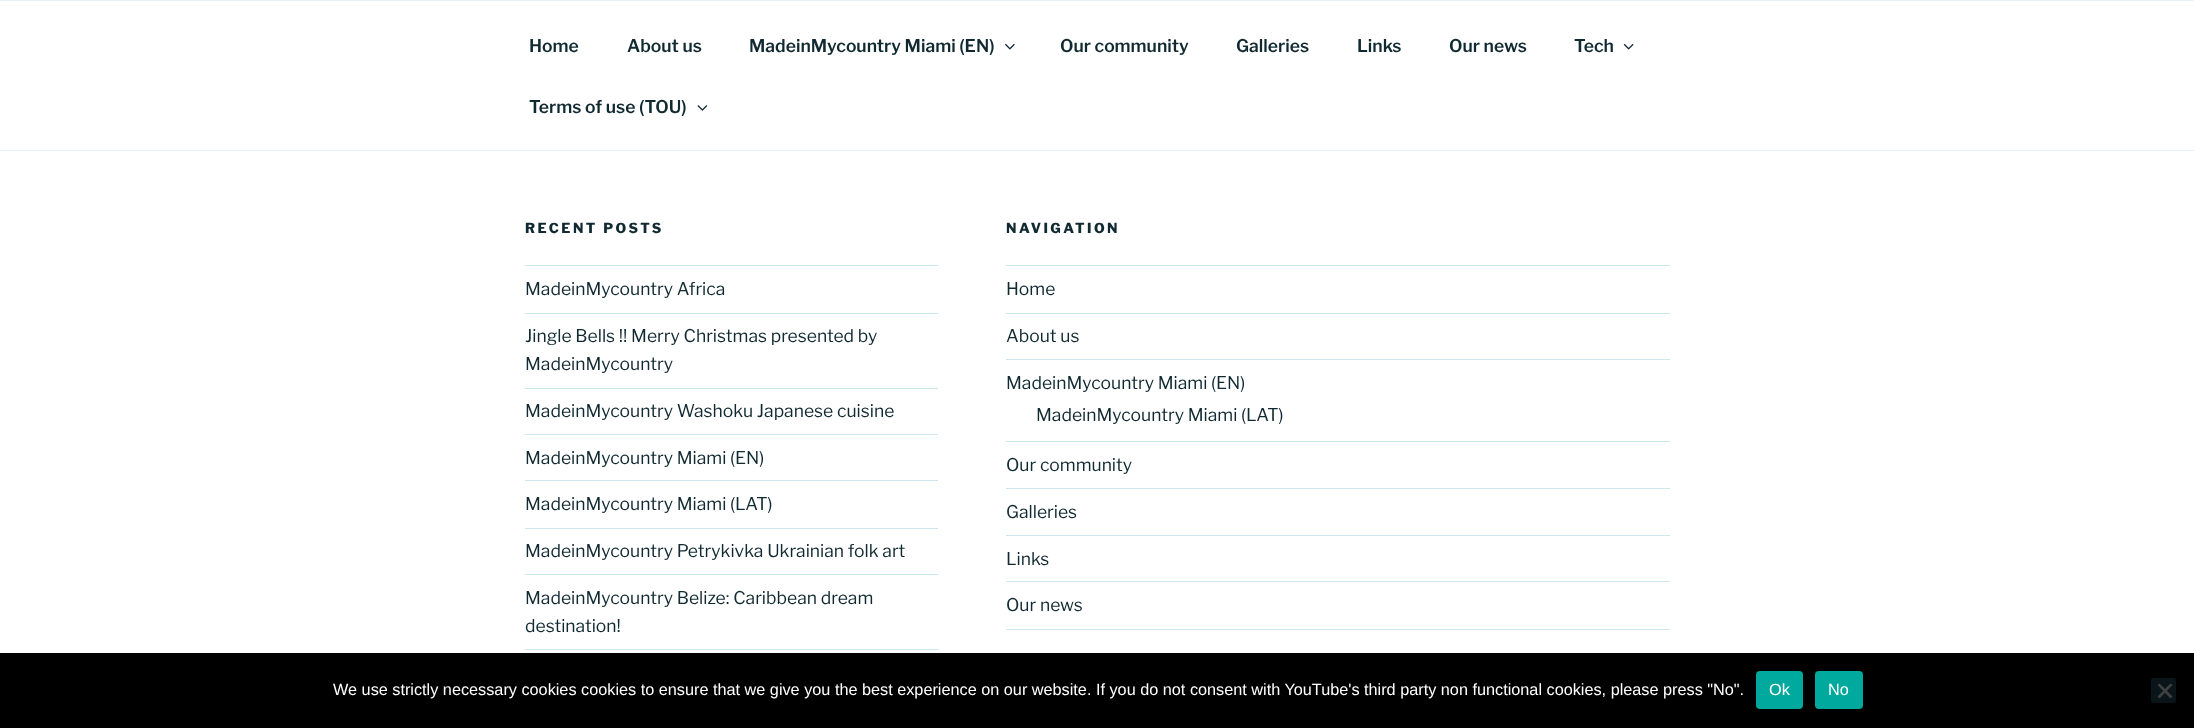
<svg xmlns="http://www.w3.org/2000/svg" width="2194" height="728">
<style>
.a{font:100 17.5px 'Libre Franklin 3';fill:#112a32}
.b{font:100 13.75px Libre Franklin;letter-spacing:2.5px;fill:#112a32}
.c{font:100 17.5px 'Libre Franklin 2';fill:#112a32}
.d{font:16.25px Liberation Sans;fill:#fff}
</style>
<rect width="100%" height="100%" fill="#fff"/>
<path fill="#e4f2f6" d="M0 0h2194v1H0z"/>
<path fill="#e4f2f6" d="M0 150h2194v1H0z"/>
<image href="1.png" x="1005" y="43" width="10" height="7"/>
<image href="2.png" x="1623" y="43" width="11" height="7"/>
<image href="3.png" x="697" y="105" width="11" height="6"/>
<path fill="#cde7ee" d="M525 265h413v1H525z"/>
<path fill="#cde7ee" d="M525 313h413v1H525z"/>
<path fill="#cde7ee" d="M525 388h413v1H525z"/>
<path fill="#cde7ee" d="M525 434h413v1H525z"/>
<path fill="#cde7ee" d="M525 480h413v1H525z"/>
<path fill="#cde7ee" d="M525 528h413v1H525z"/>
<path fill="#cde7ee" d="M525 574h413v1H525z"/>
<path fill="#cde7ee" d="M525 649h413v1H525z"/>
<path fill="#cde7ee" d="M1006 265h664v1H1006z"/>
<path fill="#cde7ee" d="M1006 313h664v1H1006z"/>
<path fill="#cde7ee" d="M1006 359h664v1H1006z"/>
<path fill="#cde7ee" d="M1006 441h664v1H1006z"/>
<path fill="#cde7ee" d="M1006 488h664v1H1006z"/>
<path fill="#cde7ee" d="M1006 535h664v1H1006z"/>
<path fill="#cde7ee" d="M1006 581h664v1H1006z"/>
<path fill="#cde7ee" d="M1006 629h664v1H1006z"/>
<path fill="#000" d="M0 653h2194v75H0z"/>
<rect fill="#00a99d" x="1756" y="671" width="47" height="38" rx="4"/>
<rect fill="#00a99d" x="1815" y="671" width="48" height="38" rx="4"/>
<rect fill="#091519" x="2151" y="678" width="25" height="25" rx="2.5"/>
<path fill="#404040" d="M2170.5 683.5l2 1.5l-13 13.5l-2-2z"/>
<path fill="#404040" d="M2157.5 685l2-1.5l13 13l-2 2z"/>
<text class="a" x="529" y="52">Home</text>
<text class="a" x="627" y="52">About us</text>
<text class="a" x="749" y="52">MadeinMycountry Miami (EN)</text>
<text class="a" x="1060" y="52">Our community</text>
<text class="a" x="1236" y="52">Galleries</text>
<text class="a" x="1357" y="52">Links</text>
<text class="a" x="1449" y="52">Our news</text>
<text class="a" x="1574" y="52">Tech</text>
<text class="a" x="529" y="113">Terms of use (TOU)</text>
<text class="b" x="525" y="233">RECENT POSTS</text>
<text class="c" x="525" y="295">MadeinMycountry Africa</text>
<text class="c" x="525" y="342">Jingle Bells !! Merry Christmas presented by</text>
<text class="c" x="525" y="370">MadeinMycountry</text>
<text class="c" x="525" y="417">MadeinMycountry Washoku Japanese cuisine</text>
<text class="c" x="525" y="464">MadeinMycountry Miami (EN)</text>
<text class="c" x="525" y="510">MadeinMycountry Miami (LAT)</text>
<text class="c" x="525" y="557">MadeinMycountry Petrykivka Ukrainian folk art</text>
<text class="c" x="525" y="604">MadeinMycountry Belize: Caribbean dream</text>
<text class="c" x="525" y="632">destination!</text>
<text class="b" x="1006" y="233">NAVIGATION</text>
<text class="c" x="1006" y="295">Home</text>
<text class="c" x="1006" y="342">About us</text>
<text class="c" x="1006" y="389">MadeinMycountry Miami (EN)</text>
<text class="c" x="1036" y="421">MadeinMycountry Miami (LAT)</text>
<text class="c" x="1006" y="471">Our community</text>
<text class="c" x="1006" y="518">Galleries</text>
<text class="c" x="1006" y="565">Links</text>
<text class="c" x="1006" y="611">Our news</text>
<text class="d" x="333" y="695">We use strictly necessary cookies cookies to ensure that we give you the best experience on our website. If you do not consent with YouTube's third party non functional cookies, please press "No".</text>
<text class="d" x="1769" y="695">Ok</text>
<text class="d" x="1828" y="695">No</text>
</svg>
